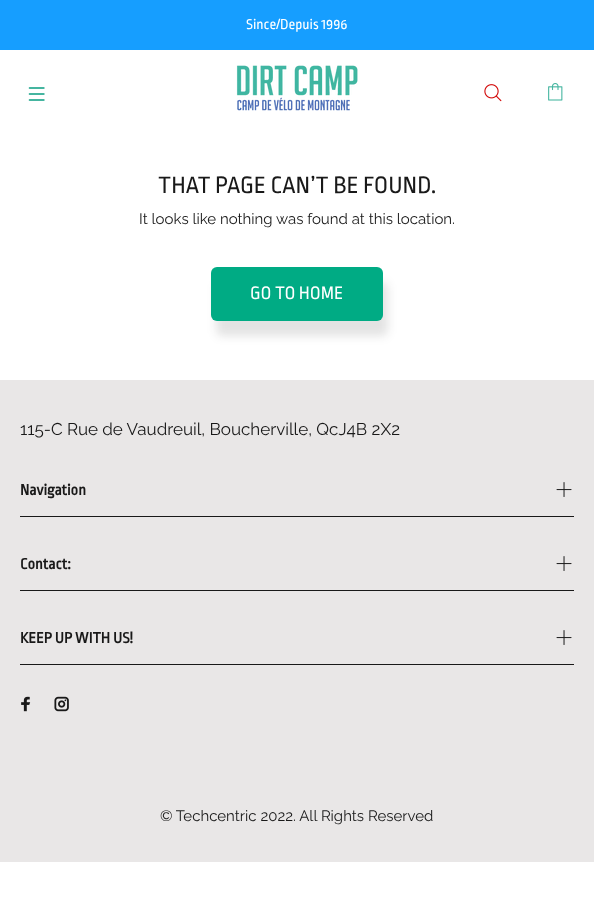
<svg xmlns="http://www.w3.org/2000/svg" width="594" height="908">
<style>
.a{font:15px Ropa Sans;fill:#fff}
.b{font:25px Ropa Sans;fill:#191919}
.c{font:15px Raleway;fill:#191919}
.d{font:19px Ropa Sans;fill:#fff}
.e{font:17px Raleway;fill:#191919}
.f{font:bold 16px Ropa Sans;fill:#191919}
</style>
<rect width="100%" height="100%" fill="#fff"/>
<path fill="#169eff" d="M0 0h594v50H0z"/>
<image href="1.png" x="28" y="87" width="17" height="14"/>
<image href="2.png" x="236" y="65" width="122" height="46"/>
<image href="3.png" x="484" y="84" width="18" height="18"/>
<image href="4.png" x="548" y="83" width="15" height="18"/>
<rect fill="#1919191f" filter="blur(5px)" x="216" y="282" width="172" height="54" rx="6"/>
<rect fill="#00ab84" x="211" y="267" width="172" height="54" rx="6"/>
<path fill="#e9e7e7" d="M0 380h594v482H0z"/>
<path fill="#191919" d="M20 516h554v1H20z"/>
<image href="5.png" x="556" y="482" width="16" height="15"/>
<path fill="#191919" d="M20 590h554v1H20z"/>
<image href="5.png" x="556" y="556" width="16" height="15"/>
<path fill="#191919" d="M20 664h554v1H20z"/>
<image href="5.png" x="556" y="630" width="16" height="15"/>
<image href="6.png" x="21" y="696" width="10" height="16"/>
<image href="7.png" x="54" y="696" width="15" height="16"/>
<text class="a" x="246" y="29">Since/Depuis 1996</text>
<text class="b" x="158" y="193">THAT PAGE CAN’T BE FOUND.</text>
<text class="c" x="139" y="224">It looks like nothing was found at this location.</text>
<text class="d" x="250" y="299">GO TO HOME</text>
<text class="e" x="20" y="435">115-C Rue de Vaudreuil, Boucherville, QcJ4B 2X2</text>
<text class="f" x="20" y="495">Navigation</text>
<text class="f" x="20" y="569">Contact:</text>
<text class="f" x="20" y="643">KEEP UP WITH US!</text>
<text class="c" x="160" y="821">© Techcentric 2022. All Rights Reserved</text>
</svg>
